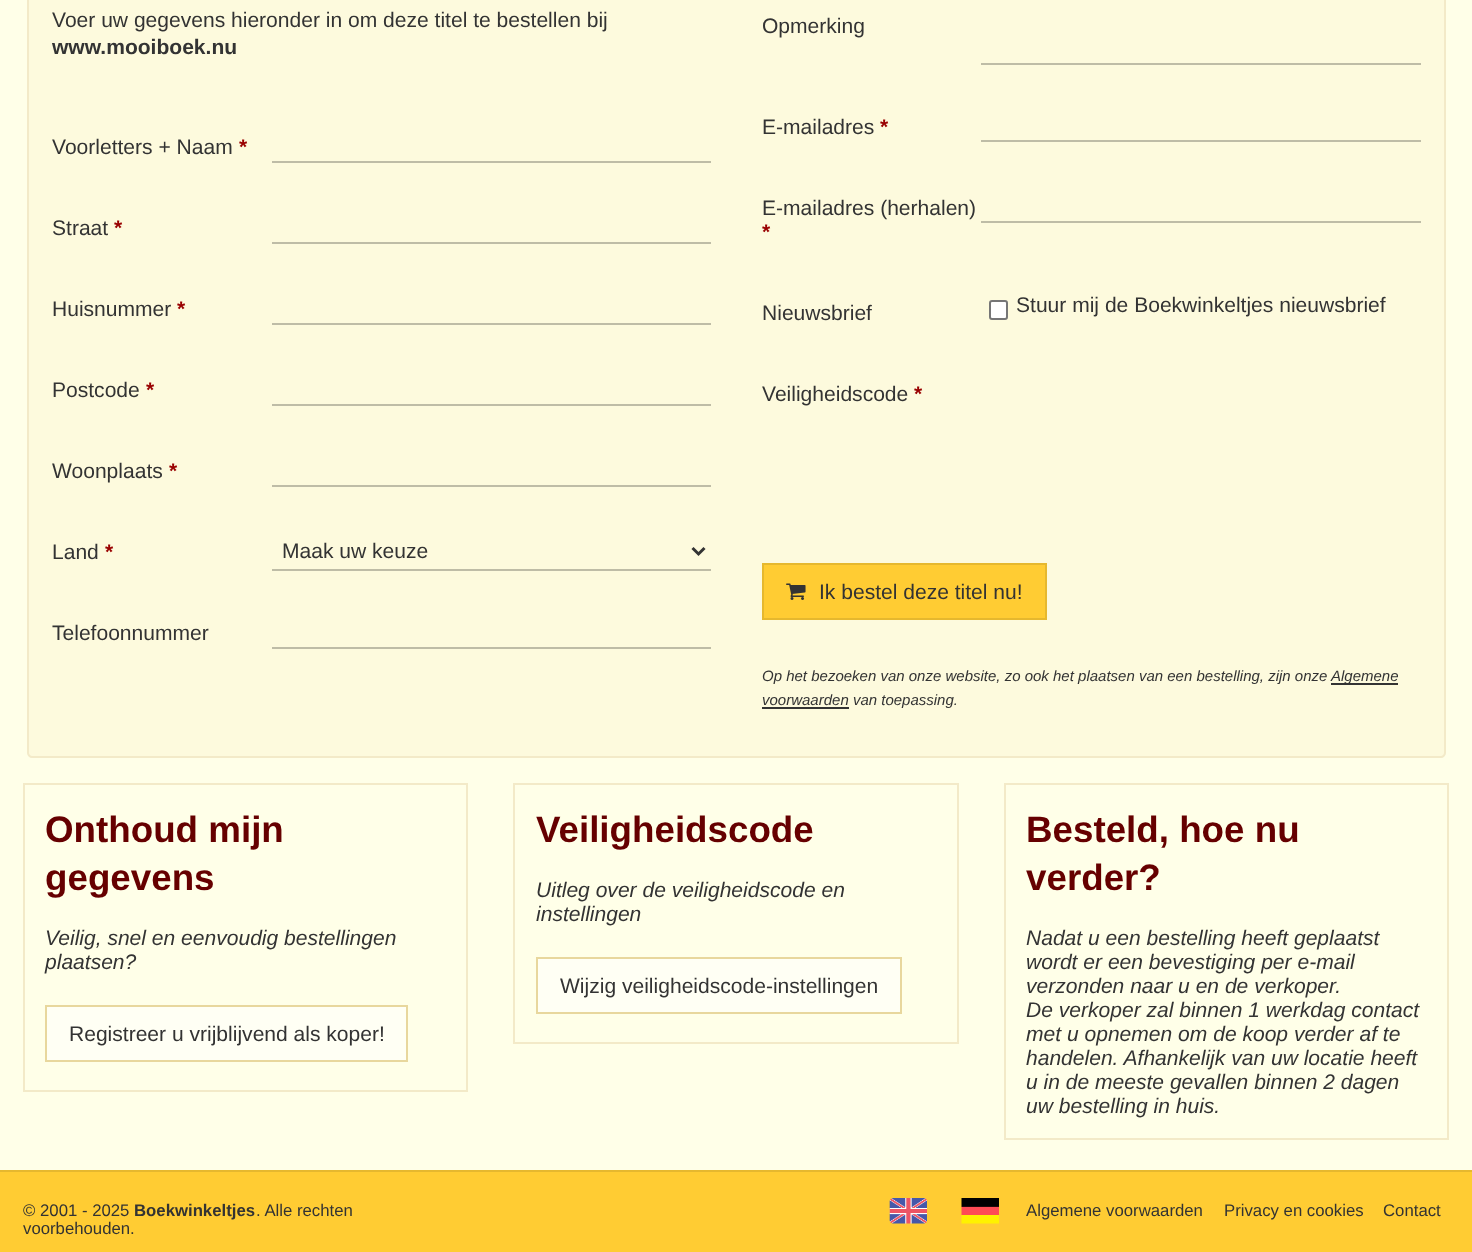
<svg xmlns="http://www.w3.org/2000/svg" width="1472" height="1252">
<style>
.a{font:21.05px Liberation Sans;fill:#333}
.b{font:bold 21.05px Liberation Sans;fill:#333}
.c{font:bold 21.05px Liberation Sans;fill:#900}
.d{font:italic 15px Liberation Sans;fill:#333}
.e{font:bold 36.75px Liberation Sans;fill:#600}
.f{font:italic 21.05px Liberation Sans;fill:#333}
.g{font:16.75px Liberation Sans;fill:#333}
.h{font:bold 16.75px Liberation Sans;fill:#333}
</style>
<rect width="100%" height="100%" fill="#ffffe8"/>
<path fill="#fdfadd" stroke="#f3eac8" stroke-width="2" d="M28-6h1417v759c0 2-2 4-4 4h-1409c-2 0-4-2-4-4z"/>
<path fill="#bebca6" d="M272 161h439v2H272z"/>
<path fill="#bebca6" d="M272 242h439v2H272z"/>
<path fill="#bebca6" d="M272 323h439v2H272z"/>
<path fill="#bebca6" d="M272 404h439v2H272z"/>
<path fill="#bebca6" d="M272 485h439v2H272z"/>
<path fill="#bebca6" d="M272 569h439v2H272z"/>
<path fill="none" stroke="#333" stroke-width="3" d="M692.5 548l6 6l6-6"/>
<path fill="#bebca6" d="M272 647h439v2H272z"/>
<path fill="#bebca6" d="M981 63h440v2H981z"/>
<path fill="#bebca6" d="M981 140h440v2H981z"/>
<path fill="#bebca6" d="M981 221h440v2H981z"/>
<rect fill="#fff" stroke="#767676" stroke-width="2" x="990" y="301" width="17" height="18" rx="2"/>
<path fill="#fc3" stroke="#e6b82e" stroke-width="2" d="M763 564h283v55H763z"/>
<image href="1.png" x="786" y="583" width="20" height="17"/>
<path fill="#333" d="M1331 683h67v2H1331z"/>
<path fill="#333" d="M762 707h87v2H762z"/>
<path fill="none" stroke="#f3eac8" stroke-width="2" d="M24 784h443v307H24z"/>
<path fill="#fffff4" stroke="#e8d79d" stroke-width="2" d="M46 1006h361v55H46z"/>
<path fill="none" stroke="#f3eac8" stroke-width="2" d="M514 784h444v259H514z"/>
<path fill="#fffff4" stroke="#e8d79d" stroke-width="2" d="M537 958h364v55H537z"/>
<path fill="none" stroke="#f3eac8" stroke-width="2" d="M1005 784h443v355H1005z"/>
<path fill="#fc3" d="M0 1172h1472v80H0z"/>
<path fill="#e6b82e" d="M0 1170h1472v2H0z"/>
<image href="2.png" x="889" y="1198" width="38" height="26"/>
<image href="3.png" x="961" y="1198" width="38" height="26"/>
<text class="a" x="52" y="27">Voer uw gegevens hieronder in om deze titel te bestellen bij</text>
<text class="b" x="52" y="54">www.mooiboek.nu</text>
<text class="a" x="52" y="154">Voorletters + Naam</text>
<text class="c" x="239" y="154">*</text>
<text class="a" x="52" y="235">Straat</text>
<text class="c" x="114" y="235">*</text>
<text class="a" x="52" y="316">Huisnummer</text>
<text class="c" x="177" y="316">*</text>
<text class="a" x="52" y="397">Postcode</text>
<text class="c" x="146" y="397">*</text>
<text class="a" x="52" y="478">Woonplaats</text>
<text class="c" x="169" y="478">*</text>
<text class="a" x="52" y="559">Land</text>
<text class="c" x="105" y="559">*</text>
<text class="a" x="282" y="558">Maak uw keuze</text>
<text class="a" x="52" y="640">Telefoonnummer</text>
<text class="a" x="762" y="33">Opmerking</text>
<text class="a" x="762" y="134">E-mailadres</text>
<text class="c" x="880" y="134">*</text>
<text class="a" x="762" y="215">E-mailadres (herhalen)</text>
<text class="c" x="762" y="239">*</text>
<text class="a" x="762" y="320">Nieuwsbrief</text>
<text class="a" x="1016" y="312">Stuur mij de Boekwinkeltjes nieuwsbrief</text>
<text class="a" x="762" y="401">Veiligheidscode</text>
<text class="c" x="914" y="401">*</text>
<text class="a" x="819" y="599">Ik bestel deze titel nu!</text>
<text class="d" x="762" y="681">Op het bezoeken van onze website, zo ook het plaatsen van een bestelling, zijn onze</text>
<text class="d" x="1331" y="681">Algemene</text>
<text class="d" x="762" y="705">voorwaarden van toepassing.</text>
<text class="e" x="45" y="842">Onthoud mijn</text>
<text class="e" x="45" y="890">gegevens</text>
<text class="f" x="45" y="945">Veilig, snel en eenvoudig bestellingen</text>
<text class="f" x="45" y="969">plaatsen?</text>
<text class="a" x="69" y="1041">Registreer u vrijblijvend als koper!</text>
<text class="e" x="536" y="842">Veiligheidscode</text>
<text class="f" x="536" y="897">Uitleg over de veiligheidscode en</text>
<text class="f" x="536" y="921">instellingen</text>
<text class="a" x="560" y="993">Wijzig veiligheidscode-instellingen</text>
<text class="e" x="1026" y="842">Besteld, hoe nu</text>
<text class="e" x="1026" y="890">verder?</text>
<text class="f" x="1026" y="945">Nadat u een bestelling heeft geplaatst</text>
<text class="f" x="1026" y="969">wordt er een bevestiging per e-mail</text>
<text class="f" x="1026" y="993">verzonden naar u en de verkoper.</text>
<text class="f" x="1026" y="1017">De verkoper zal binnen 1 werkdag contact</text>
<text class="f" x="1026" y="1041">met u opnemen om de koop verder af te</text>
<text class="f" x="1026" y="1065">handelen. Afhankelijk van uw locatie heeft</text>
<text class="f" x="1026" y="1089">u in de meeste gevallen binnen 2 dagen</text>
<text class="f" x="1026" y="1113">uw bestelling in huis.</text>
<text class="g" x="23" y="1216">© 2001 - 2025</text>
<text class="h" x="134" y="1216">Boekwinkeltjes</text>
<text class="g" x="256" y="1216">. Alle rechten</text>
<text class="g" x="23" y="1234">voorbehouden.</text>
<text class="g" x="1026" y="1216">Algemene voorwaarden</text>
<text class="g" x="1224" y="1216">Privacy en cookies</text>
<text class="g" x="1383" y="1216">Contact</text>
</svg>
